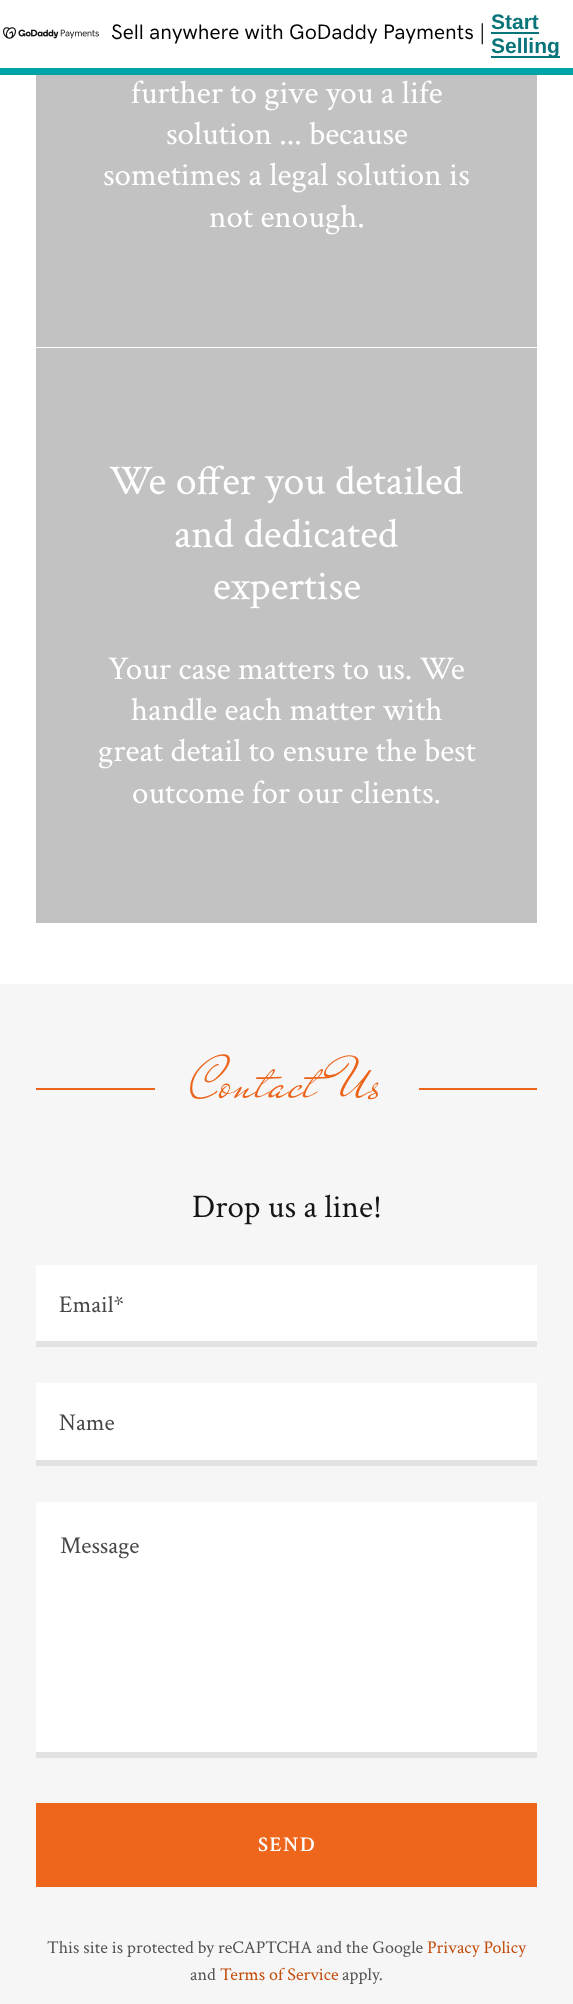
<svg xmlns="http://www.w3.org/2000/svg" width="573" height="2004">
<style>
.a{font:500 21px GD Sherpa;fill:#000}
.b{font:bold 21px Liberation Sans;fill:#09757a}
.c{font:33px Crimson Text;fill:#fff}
.d{font:42px Crimson Text;fill:#fff}
.e{font:60px Mr De Haviland;letter-spacing:1.5px;fill:#eb641a}
.f{font:33px Crimson Text;fill:#151515}
.g{font:24px Crimson Text;fill:#474747}
.h{font:600 21px Crimson Text;letter-spacing:1.5px;fill:#fff}
.i{font:18px Crimson Text;fill:#525252}
.j{font:18px Crimson Text;fill:#c24b0a}
</style>
<rect width="100%" height="100%" fill="#fff"/>
<path fill="#00a4a6" d="M0 68h573v7H0z"/>
<image href="1.png" x="3" y="27" width="96" height="12"/>
<path fill="#09757a" d="M491 32h48v2H491z"/>
<path fill="#09757a" d="M491 56h69v2H491z"/>
<path fill="#c2c2c2" d="M36 75h501v272H36z"/>
<path fill="#c2c2c2" d="M36 348h501v575H36z"/>
<path fill="#f6f6f6" d="M0 984h573v1020H0z"/>
<path fill="#eb641a" d="M36 1088h119v2H36z"/>
<path fill="#eb641a" d="M419 1088h118v2H419z"/>
<path fill="#fff" d="M36 1265h501v76H36z"/>
<path fill="#e2e2e2" d="M36 1341h501v6H36z"/>
<path fill="#fff" d="M36 1383h501v77H36z"/>
<path fill="#e2e2e2" d="M36 1460h501v6H36z"/>
<path fill="#fff" d="M36 1502h501v250H36z"/>
<path fill="#e2e2e2" d="M36 1752h501v6H36z"/>
<path fill="#ee661b" d="M36 1803h501v84H36z"/>
<text class="a" x="111" y="39">Sell anywhere with GoDaddy Payments |</text>
<text class="b" x="491" y="29">Start</text>
<text class="b" x="491" y="53">Selling</text>
<text class="c" x="131" y="103">further to give you a life</text>
<text class="c" x="166" y="144">solution ... because</text>
<text class="c" x="103" y="185">sometimes a legal solution is</text>
<text class="c" x="209" y="227">not enough.</text>
<text class="d" x="109" y="494">We offer you detailed</text>
<text class="d" x="174" y="547">and dedicated</text>
<text class="d" x="213" y="599">expertise</text>
<text class="c" x="108" y="679">Your case matters to us. We</text>
<text class="c" x="131" y="720">handle each matter with</text>
<text class="c" x="98" y="761">great detail to ensure the best</text>
<text class="c" x="132" y="803">outcome for our clients.</text>
<text class="e" x="190" y="1097">Contact Us</text>
<text class="f" x="192" y="1217">Drop us a line!</text>
<text class="g" x="59" y="1312">Email*</text>
<text class="g" x="59" y="1430">Name</text>
<text class="g" x="60" y="1553">Message</text>
<text class="h" x="258" y="1851">SEND</text>
<text class="i" x="47" y="1953">This site is protected by reCAPTCHA and the Google</text>
<text class="j" x="427" y="1953">Privacy Policy</text>
<text class="i" x="190" y="1980">and</text>
<text class="j" x="220" y="1980">Terms of Service</text>
<text class="i" x="342" y="1980">apply.</text>
</svg>
